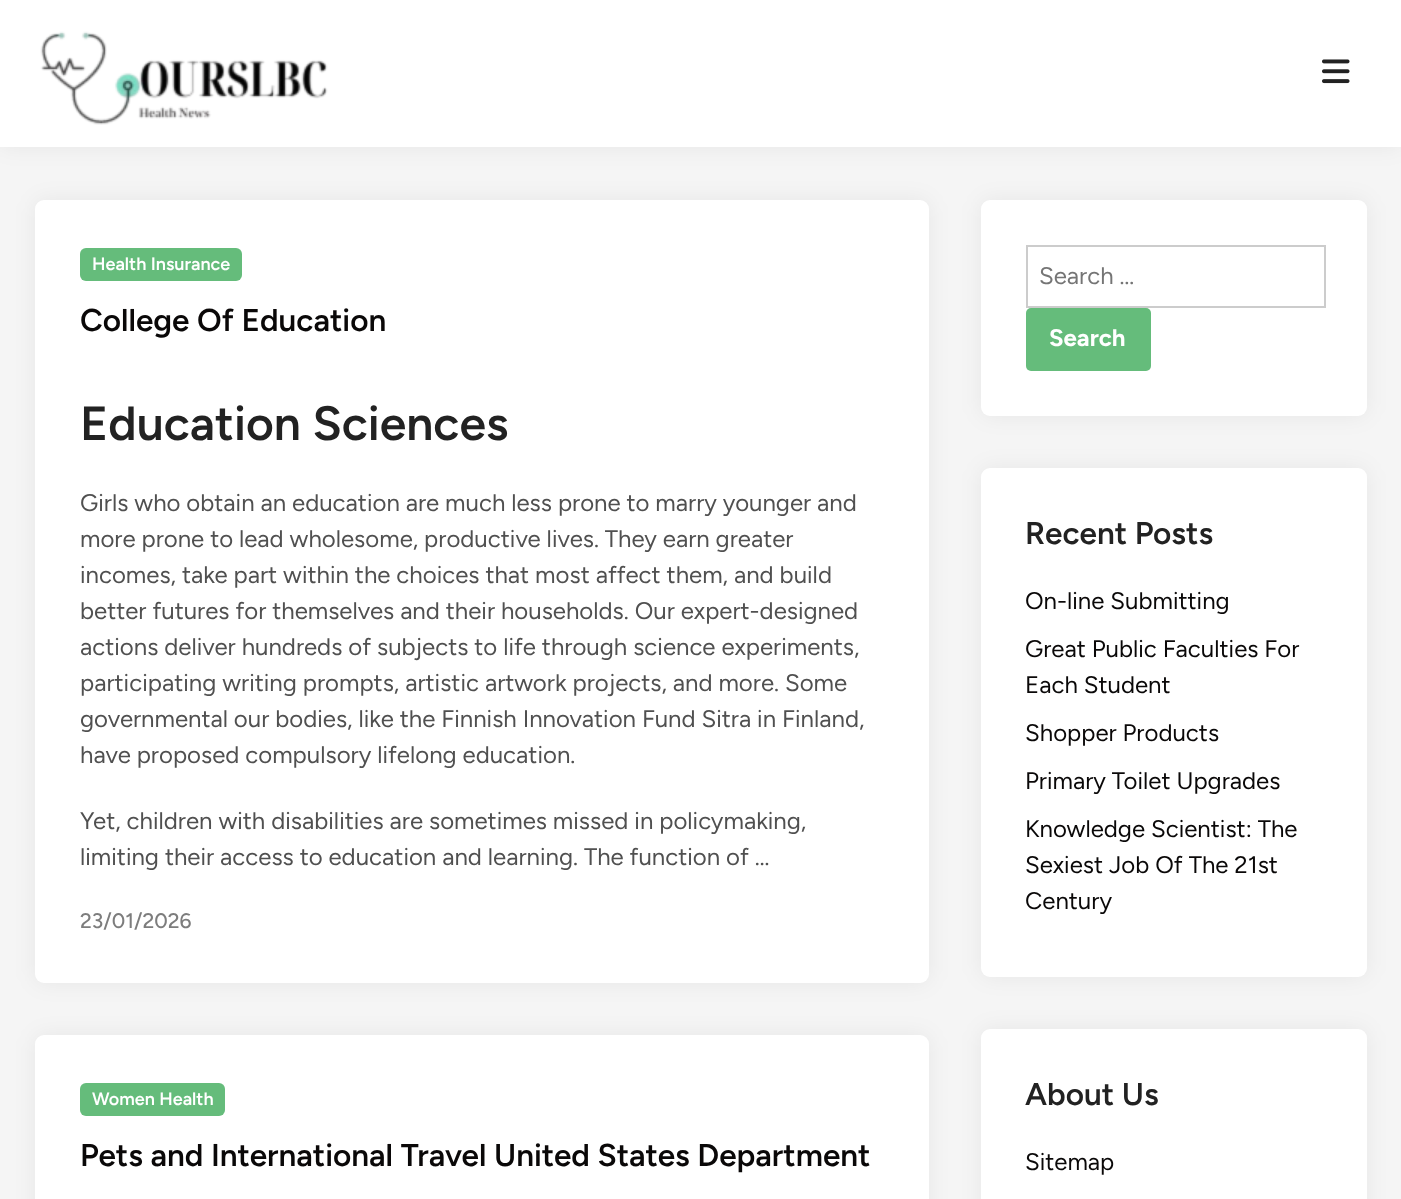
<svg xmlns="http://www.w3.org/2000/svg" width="1401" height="1199">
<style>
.a{font:600 18px Figtree;fill:#fff}
.b{font:600 31.5px Figtree;fill:#0a0808}
.c{font:600 48px Figtree;fill:#222}
.d{font:24px Figtree;fill:#505050}
.e{font:500 21px Figtree;fill:#7d7d7d}
.f{font:24px Figtree;fill:#757575}
.g{font:bold 24px Figtree;fill:#fff}
.h{font:600 31.5px Figtree;fill:#222}
.i{font:24px Figtree;fill:#0a0808}
</style>
<rect width="100%" height="100%" fill="#f5f5f5"/>
<path fill="#0000000f" filter="blur(11px)" d="M0 0h1401v147H0z"/>
<path fill="#fff" d="M0 0h1401v147H0z"/>
<image href="1.png" x="40" y="31" width="288" height="94"/>
<image href="2.png" x="1322" y="59" width="28" height="25"/>
<rect fill="#0000000f" filter="blur(11px)" x="35" y="200" width="894" height="783" rx="9"/>
<rect fill="#fff" x="35" y="200" width="894" height="783" rx="9"/>
<rect fill="#65bc7b" x="80" y="248" width="162" height="33" rx="6"/>
<rect fill="#0000000f" filter="blur(11px)" x="35" y="1035" width="894" height="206" rx="9"/>
<rect fill="#fff" x="35" y="1035" width="894" height="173" rx="9"/>
<rect fill="#65bc7b" x="80" y="1083" width="145" height="33" rx="6"/>
<rect fill="#0000000f" filter="blur(11px)" x="981" y="200" width="386" height="216" rx="9"/>
<rect fill="#fff" x="981" y="200" width="386" height="216" rx="9"/>
<path fill="none" stroke="#ccc" stroke-width="2" d="M1027 246h298v61H1027z"/>
<rect fill="#65bc7b" x="1026" y="308" width="125" height="63" rx="5"/>
<rect fill="#0000000f" filter="blur(11px)" x="981" y="468" width="386" height="509" rx="9"/>
<rect fill="#fff" x="981" y="468" width="386" height="509" rx="9"/>
<rect fill="#0000000f" filter="blur(11px)" x="981" y="1029" width="386" height="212" rx="9"/>
<rect fill="#fff" x="981" y="1029" width="386" height="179" rx="9"/>
<text class="a" x="92" y="270">Health Insurance</text>
<text class="b" x="80" y="331">College Of Education</text>
<text class="c" x="80" y="440">Education Sciences</text>
<text class="d" x="80" y="511">Girls who obtain an education are much less prone to marry younger and</text>
<text class="d" x="80" y="547">more prone to lead wholesome, productive lives. They earn greater</text>
<text class="d" x="80" y="583">incomes, take part within the choices that most affect them, and build</text>
<text class="d" x="80" y="619">better futures for themselves and their households. Our expert-designed</text>
<text class="d" x="80" y="655">actions deliver hundreds of subjects to life through science experiments,</text>
<text class="d" x="80" y="691">participating writing prompts, artistic artwork projects, and more. Some</text>
<text class="d" x="80" y="727">governmental our bodies, like the Finnish Innovation Fund Sitra in Finland,</text>
<text class="d" x="80" y="763">have proposed compulsory lifelong education.</text>
<text class="d" x="80" y="829">Yet, children with disabilities are sometimes missed in policymaking,</text>
<text class="d" x="80" y="865">limiting their access to education and learning. The function of …</text>
<text class="e" x="80" y="928">23/01/2026</text>
<text class="a" x="92" y="1105">Women Health</text>
<text class="b" x="80" y="1166">Pets and International Travel United States Department</text>
<text class="f" x="1039" y="284">Search …</text>
<text class="g" x="1049" y="346">Search</text>
<text class="h" x="1025" y="544">Recent Posts</text>
<text class="i" x="1025" y="609">On-line Submitting</text>
<text class="i" x="1025" y="657">Great Public Faculties For</text>
<text class="i" x="1025" y="693">Each Student</text>
<text class="i" x="1025" y="741">Shopper Products</text>
<text class="i" x="1025" y="789">Primary Toilet Upgrades</text>
<text class="i" x="1025" y="837">Knowledge Scientist: The</text>
<text class="i" x="1025" y="873">Sexiest Job Of The 21st</text>
<text class="i" x="1025" y="909">Century</text>
<text class="h" x="1025" y="1105">About Us</text>
<text class="i" x="1025" y="1170">Sitemap</text>
</svg>
